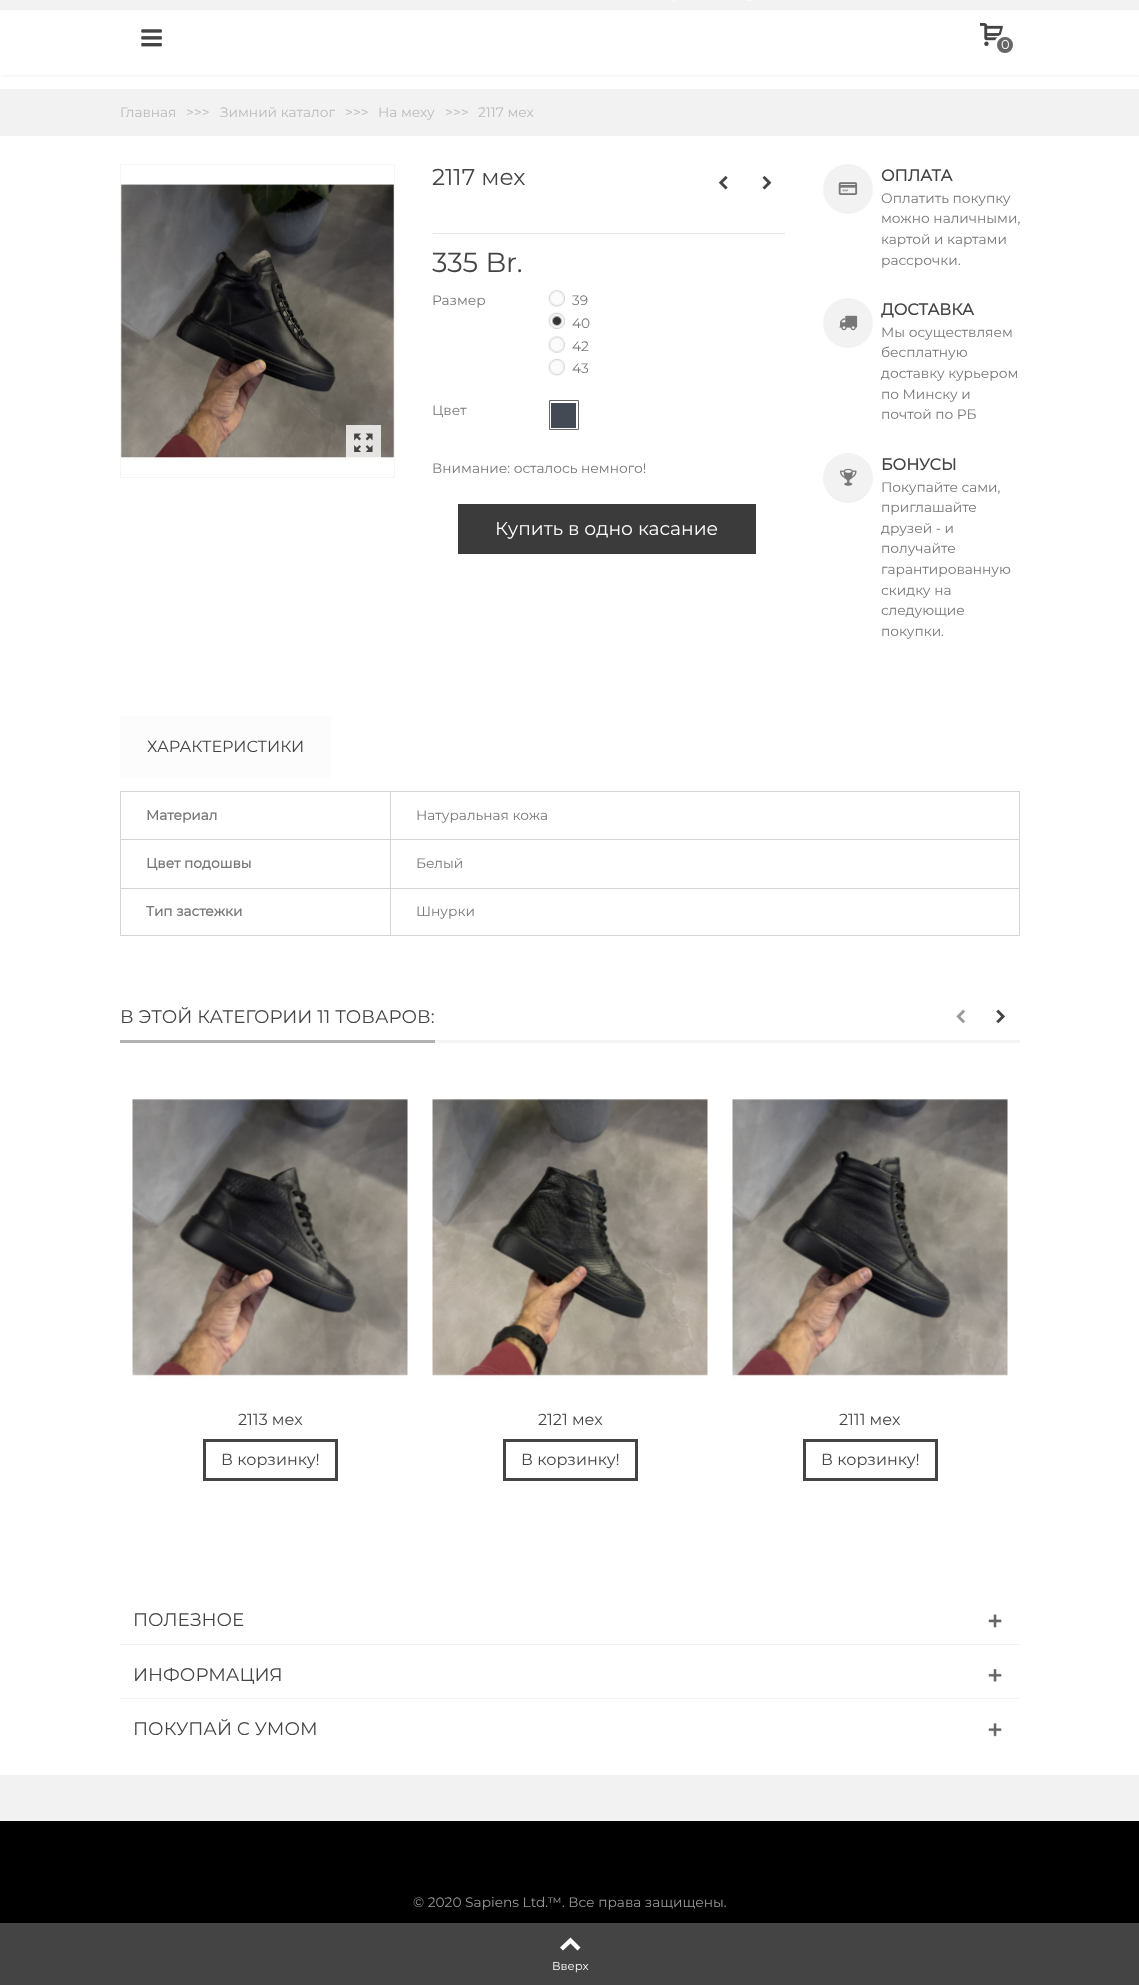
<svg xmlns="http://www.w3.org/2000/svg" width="1139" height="1985">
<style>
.a{font:100 13px Montserrat;fill:#fff}
.b{font:100 13.75px Montserrat;fill:#bbb}
.c{font:100 23px Montserrat;fill:#444}
.d{font:100 27.5px Montserrat;fill:#444}
.e{font:100 13.75px Montserrat;fill:#777}
.f{font:100 18.75px Montserrat;fill:#fff}
.g{font:bold 16px Montserrat;fill:#444}
.h{font:100 16px Montserrat;fill:#444}
.i{font:bold 13.75px Montserrat;fill:#777}
.j{font:100 18.3px Montserrat;fill:#444}
.k{font:100 13.75px Montserrat;fill:#999}
.l{font:100 11.5px Montserrat;fill:#fff}
</style>
<defs>
<clipPath id="clip1"><path d="M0 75h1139v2H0z"/></clipPath>
</defs>
<rect width="100%" height="100%" fill="#fff"/>
<path fill="#f2f2f2" d="M0 0h1139v10H0z"/>
<image href="1.png" x="672" y="0" width="3" height="1"/>
<image href="2.png" x="746" y="0" width="7" height="1"/>
<g clip-path="url(#clip1)">
<path fill="#0000001a" filter="blur(2.5px)" d="M0 0h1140v75H0z"/>
</g>
<image href="3.png" x="141" y="29" width="21" height="18"/>
<image href="4.png" x="980" y="23" width="23" height="23"/>
<circle fill="#666" stroke="#fff" stroke-width="3" cx="1005" cy="45" r="9.5"/>
<path fill="#f2f2f2" d="M0 89h1139v47H0z"/>
<path fill="none" stroke="#f5f5f5" d="M120.5 164.5h274v313H120.5z"/>
<image href="5.png" x="121" y="183" width="273" height="278"/>
<path fill="#ffffffcc" d="M346 425h35v33H346z"/>
<image href="6.png" x="354" y="433" width="19" height="19"/>
<image href="7.png" x="718" y="175" width="10" height="15"/>
<image href="8.png" x="762" y="175" width="10" height="15"/>
<path fill="#e5e5e5" d="M433 233h352v1H433z"/>
<image href="9.png" x="548" y="290" width="17" height="17"/>
<image href="10.png" x="548" y="312" width="17" height="17"/>
<image href="11.png" x="548" y="336" width="17" height="17"/>
<image href="12.png" x="548" y="359" width="17" height="17"/>
<path fill="none" stroke="#666" d="M549.5 400.5h29v29H549.5z"/>
<path fill="#434a54" d="M551 403h25v25H551z"/>
<path fill="#3b3b3b" d="M458 504h298v50H458z"/>
<circle fill="#f2f2f2" cx="848" cy="189" r="25"/>
<image href="13.png" x="838" y="182" width="20" height="13"/>
<circle fill="#f2f2f2" cx="848" cy="323" r="25"/>
<image href="14.png" x="839" y="315" width="19" height="16"/>
<circle fill="#f2f2f2" cx="848" cy="478" r="25"/>
<image href="15.png" x="840" y="468" width="17" height="18"/>
<path fill="#fcfcfc" d="M120 716h211v62H120z"/>
<path fill="#d6d4d4" d="M120 791h900v1H120z"/>
<path fill="#d6d4d4" d="M1019 791h1v145H1019z"/>
<path fill="#d6d4d4" d="M120 935h900v1H120z"/>
<path fill="#d6d4d4" d="M120 791h1v145H120z"/>
<path fill="#d6d4d4" d="M390 839h630v1H390z"/>
<path fill="#d6d4d4" d="M390 888h630v1H390z"/>
<path fill="#d6d4d4" d="M390 888h1v48H390z"/>
<path fill="#d6d4d4" d="M120 888h271v1H120z"/>
<path fill="#d6d4d4" d="M390 839h1v50H390z"/>
<path fill="#d6d4d4" d="M120 839h271v1H120z"/>
<path fill="#d6d4d4" d="M390 791h1v49H390z"/>
<path fill="#f4f5f6" d="M435 1040h585v3H435z"/>
<path fill="#b2b2b2" d="M120 1040h315v3H120z"/>
<image href="16.png" x="956" y="1009" width="9" height="15"/>
<image href="17.png" x="996" y="1009" width="10" height="15"/>
<image href="18.png" x="132" y="1099" width="276" height="280"/>
<path fill="none" stroke="#444" stroke-width="3" d="M204.5 1440.5h132v39H204.5z"/>
<image href="19.png" x="432" y="1098" width="276" height="281"/>
<path fill="none" stroke="#444" stroke-width="3" d="M504.5 1440.5h132v39H504.5z"/>
<image href="20.png" x="732" y="1099" width="276" height="279"/>
<path fill="none" stroke="#444" stroke-width="3" d="M804.5 1440.5h132v39H804.5z"/>
<path fill="#f2f2f2" d="M120 1644h900v1H120z"/>
<image href="21.png" x="988" y="1614" width="14" height="14"/>
<path fill="#f2f2f2" d="M120 1698h900v1H120z"/>
<image href="22.png" x="988" y="1669" width="14" height="13"/>
<image href="23.png" x="988" y="1723" width="14" height="14"/>
<path fill="#f2f2f2" d="M0 1775h1139v46H0z"/>
<path fill="#000" d="M0 1821h1139v102H0z"/>
<path fill="#444" d="M0 1923h1139v62H0z"/>
<path fill="#fff" d="M560 1947.5l10.5-10l10 10l-3 3l-7-7l-7.5 7z"/>
<text class="a" x="1001" y="49">0</text>
<text class="b" x="120" y="117">Главная</text>
<text class="b" x="186" y="117">&gt;&gt;&gt;</text>
<text class="b" x="220" y="117">Зимний каталог</text>
<text class="b" x="345" y="117">&gt;&gt;&gt;</text>
<text class="b" x="378" y="117">На меху</text>
<text class="b" x="445" y="117">&gt;&gt;&gt;</text>
<text class="b" x="478" y="117">2117 мех</text>
<text class="c" x="432" y="185">2117 мех</text>
<text class="d" x="432" y="272">335 Br.</text>
<text class="e" x="432" y="305">Размер</text>
<text class="e" x="572" y="305">39</text>
<text class="e" x="572" y="328">40</text>
<text class="e" x="572" y="351">42</text>
<text class="e" x="572" y="373">43</text>
<text class="e" x="432" y="415">Цвет</text>
<text class="e" x="432" y="473">Внимание: осталось немного!</text>
<text class="f" x="495" y="535">Купить в одно касание</text>
<text class="g" x="881" y="181">ОПЛАТА</text>
<text class="e" x="881" y="203">Оплатить покупку</text>
<text class="e" x="881" y="223">можно наличными,</text>
<text class="e" x="881" y="244">картой и картами</text>
<text class="e" x="881" y="265">рассрочки.</text>
<text class="g" x="881" y="315">ДОСТАВКА</text>
<text class="e" x="881" y="337">Мы осуществляем</text>
<text class="e" x="881" y="357">бесплатную</text>
<text class="e" x="881" y="378">доставку курьером</text>
<text class="e" x="881" y="399">по Минску и</text>
<text class="e" x="881" y="419">почтой по РБ</text>
<text class="g" x="881" y="470">БОНУСЫ</text>
<text class="e" x="881" y="492">Покупайте сами,</text>
<text class="e" x="881" y="512">приглашайте</text>
<text class="e" x="881" y="533">друзей - и</text>
<text class="e" x="881" y="553">получайте</text>
<text class="e" x="881" y="574">гарантированную</text>
<text class="e" x="881" y="595">скидку на</text>
<text class="e" x="881" y="615">следующие</text>
<text class="e" x="881" y="636">покупки.</text>
<text class="h" x="147" y="752">ХАРАКТЕРИСТИКИ</text>
<text class="i" x="146" y="820">Материал</text>
<text class="e" x="416" y="820">Натуральная кожа</text>
<text class="i" x="146" y="868">Цвет подошвы</text>
<text class="e" x="416" y="868">Белый</text>
<text class="i" x="146" y="916">Тип застежки</text>
<text class="e" x="416" y="916">Шнурки</text>
<text class="j" x="120" y="1023">В ЭТОЙ КАТЕГОРИИ 11 ТОВАРОВ:</text>
<text class="h" x="238" y="1425">2113 мех</text>
<text class="h" x="221" y="1465">В корзинку!</text>
<text class="h" x="538" y="1425">2121 мех</text>
<text class="h" x="521" y="1465">В корзинку!</text>
<text class="h" x="839" y="1425">2111 мех</text>
<text class="h" x="821" y="1465">В корзинку!</text>
<text class="j" x="133" y="1626">ПОЛЕЗНОЕ</text>
<text class="j" x="133" y="1681">ИНФОРМАЦИЯ</text>
<text class="j" x="133" y="1735">ПОКУПАЙ С УМОМ</text>
<text class="k" x="413" y="1907">© 2020 Sapiens Ltd.™. Все права защищены.</text>
<text class="l" x="552" y="1970">Вверх</text>
</svg>
